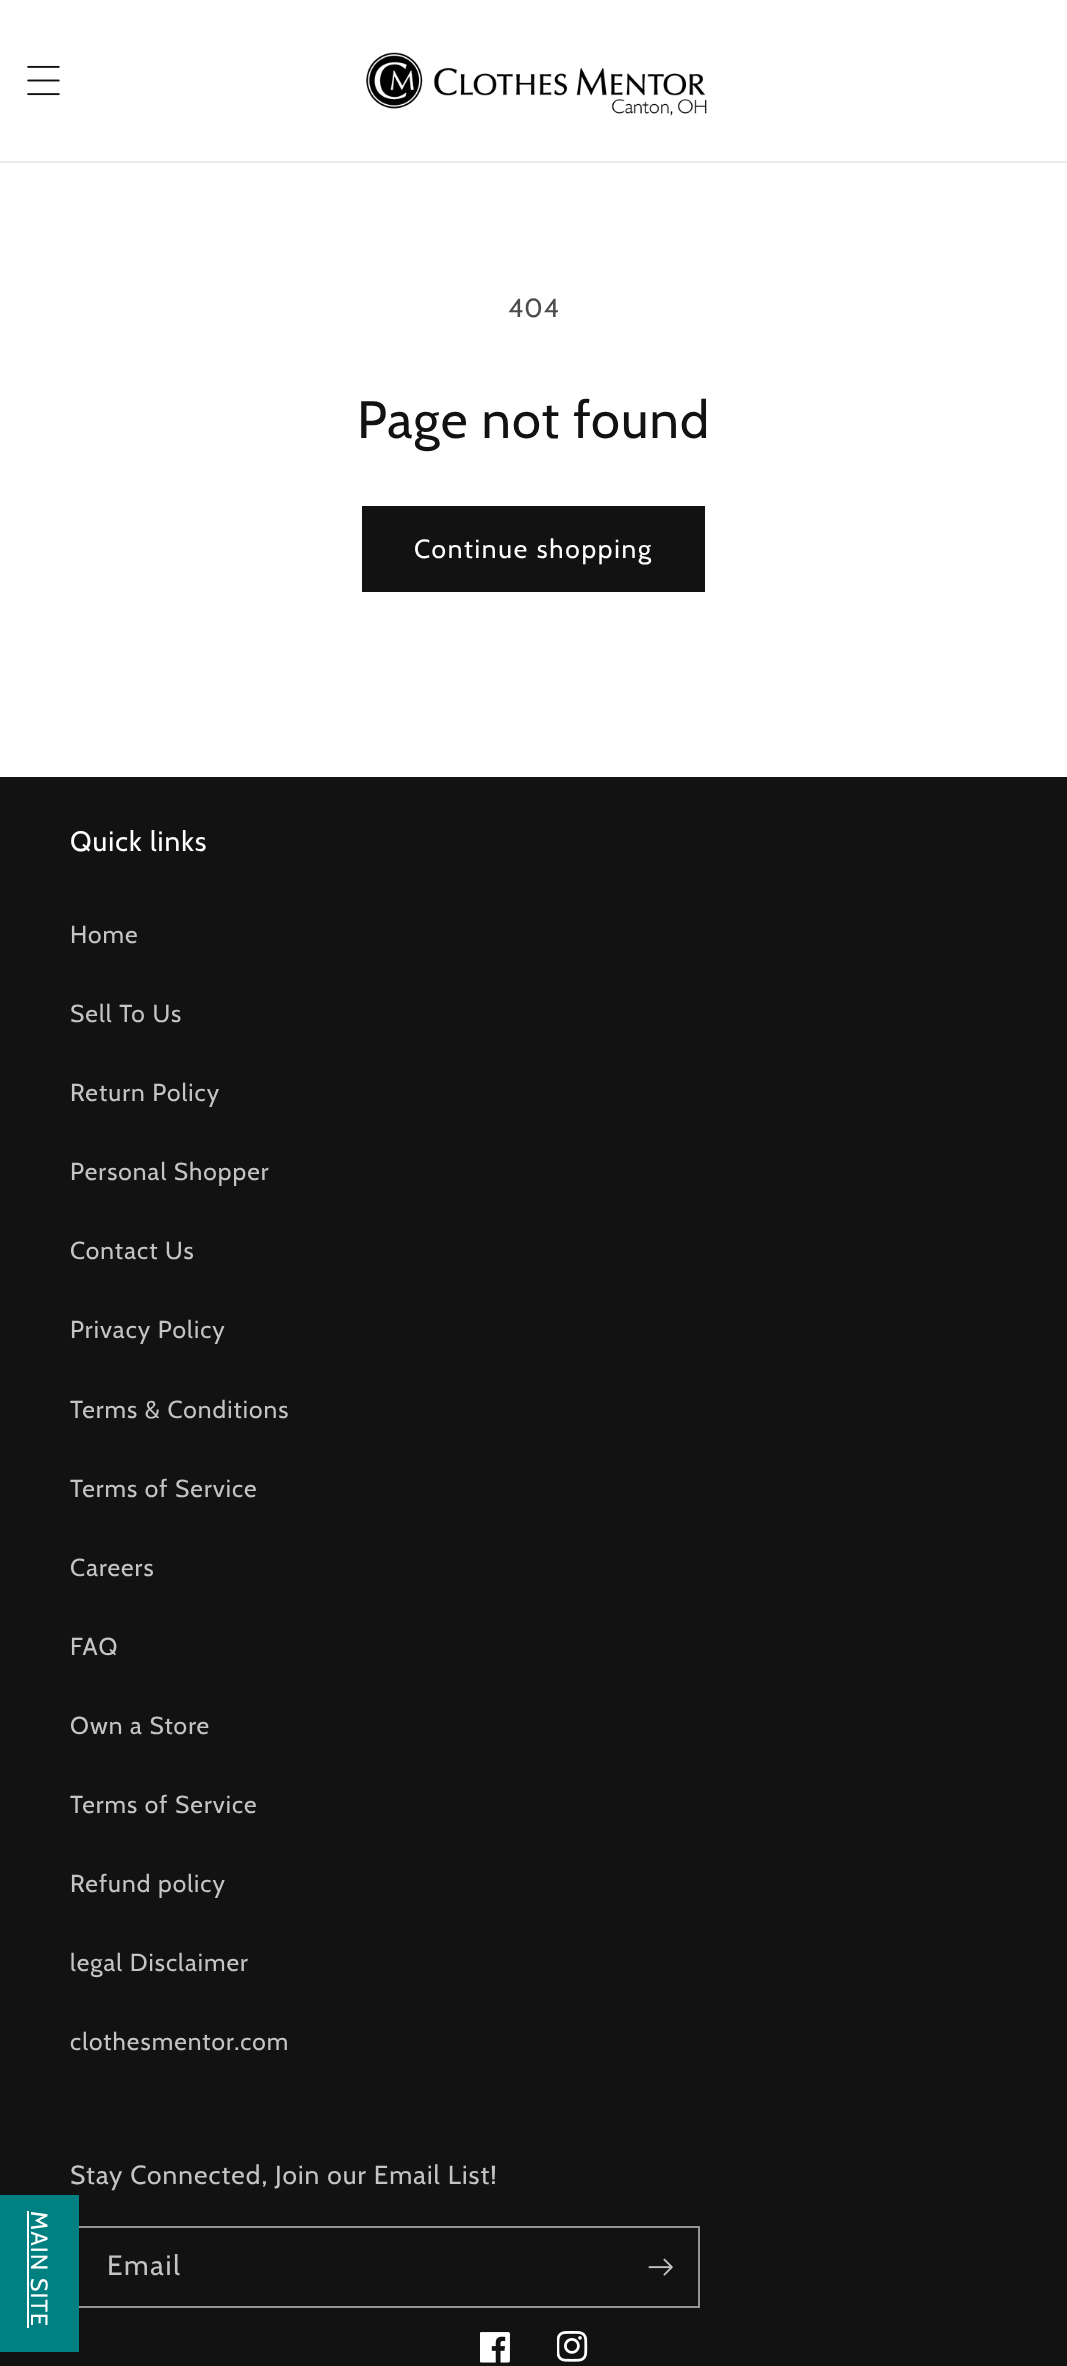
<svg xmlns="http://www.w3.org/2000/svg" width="1067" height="2366">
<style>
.a{font:26.25px Cabin;letter-spacing:1.05px;fill:#4d4d4d}
.b{font:52.5px Cabin;letter-spacing:1.05px;fill:#121212}
.c{font:26.25px Cabin;letter-spacing:1.75px;fill:#fff}
.d{font:23.5px Cabin;letter-spacing:1.05px;fill:#fff}
.e{font:28px Cabin;letter-spacing:1.05px;fill:#fff}
.f{font:24.5px Cabin;letter-spacing:1.05px;fill:#c4c4c4}
.g{font:26.25px Cabin;letter-spacing:1.05px;fill:#c4c4c4}
.h{font:28px Cabin;letter-spacing:1.75px;fill:#c4c4c4}
</style>
<rect width="100%" height="100%" fill="#fff"/>
<path fill="#ececec" d="M0 161h1067v2H0z"/>
<image href="1.png" x="27" y="65" width="33" height="31"/>
<image href="2.png" x="366" y="52" width="341" height="64"/>
<path fill="#121212" d="M362 506h343v86H362z"/>
<path fill="#121212" d="M0 777h1067v1589H0z"/>
<path fill="none" stroke="#949494" stroke-width="2" d="M71 2227h628v80H71z"/>
<path fill="#008080" d="M0 2195h79v157H0z"/>
<path fill="#fff" d="M27 2211h2v117H27z"/>
<image href="3.png" x="648" y="2258" width="25" height="18"/>
<image href="4.png" x="480" y="2332" width="30" height="31"/>
<image href="5.png" x="557" y="2331" width="31" height="31"/>
<text class="a" x="508" y="317">404</text>
<text class="b" x="357" y="438">Page not found</text>
<text class="c" x="414" y="558">Continue shopping</text>
<text class="d" x="31" y="2211" transform="rotate(90 31 2211)">MAIN SITE</text>
<text class="e" x="70" y="851">Quick links</text>
<text class="f" x="70" y="943">Home</text>
<text class="f" x="70" y="1022">Sell To Us</text>
<text class="f" x="70" y="1101">Return Policy</text>
<text class="f" x="70" y="1180">Personal Shopper</text>
<text class="f" x="70" y="1259">Contact Us</text>
<text class="f" x="70" y="1338">Privacy Policy</text>
<text class="f" x="70" y="1418">Terms &amp; Conditions</text>
<text class="f" x="70" y="1497">Terms of Service</text>
<text class="f" x="70" y="1576">Careers</text>
<text class="f" x="70" y="1655">FAQ</text>
<text class="f" x="70" y="1734">Own a Store</text>
<text class="f" x="70" y="1813">Terms of Service</text>
<text class="f" x="70" y="1892">Refund policy</text>
<text class="f" x="70" y="1971">legal Disclaimer</text>
<text class="f" x="70" y="2050">clothesmentor.com</text>
<text class="g" x="70" y="2184">Stay Connected, Join our Email List!</text>
<text class="h" x="107" y="2275">Email</text>
</svg>
